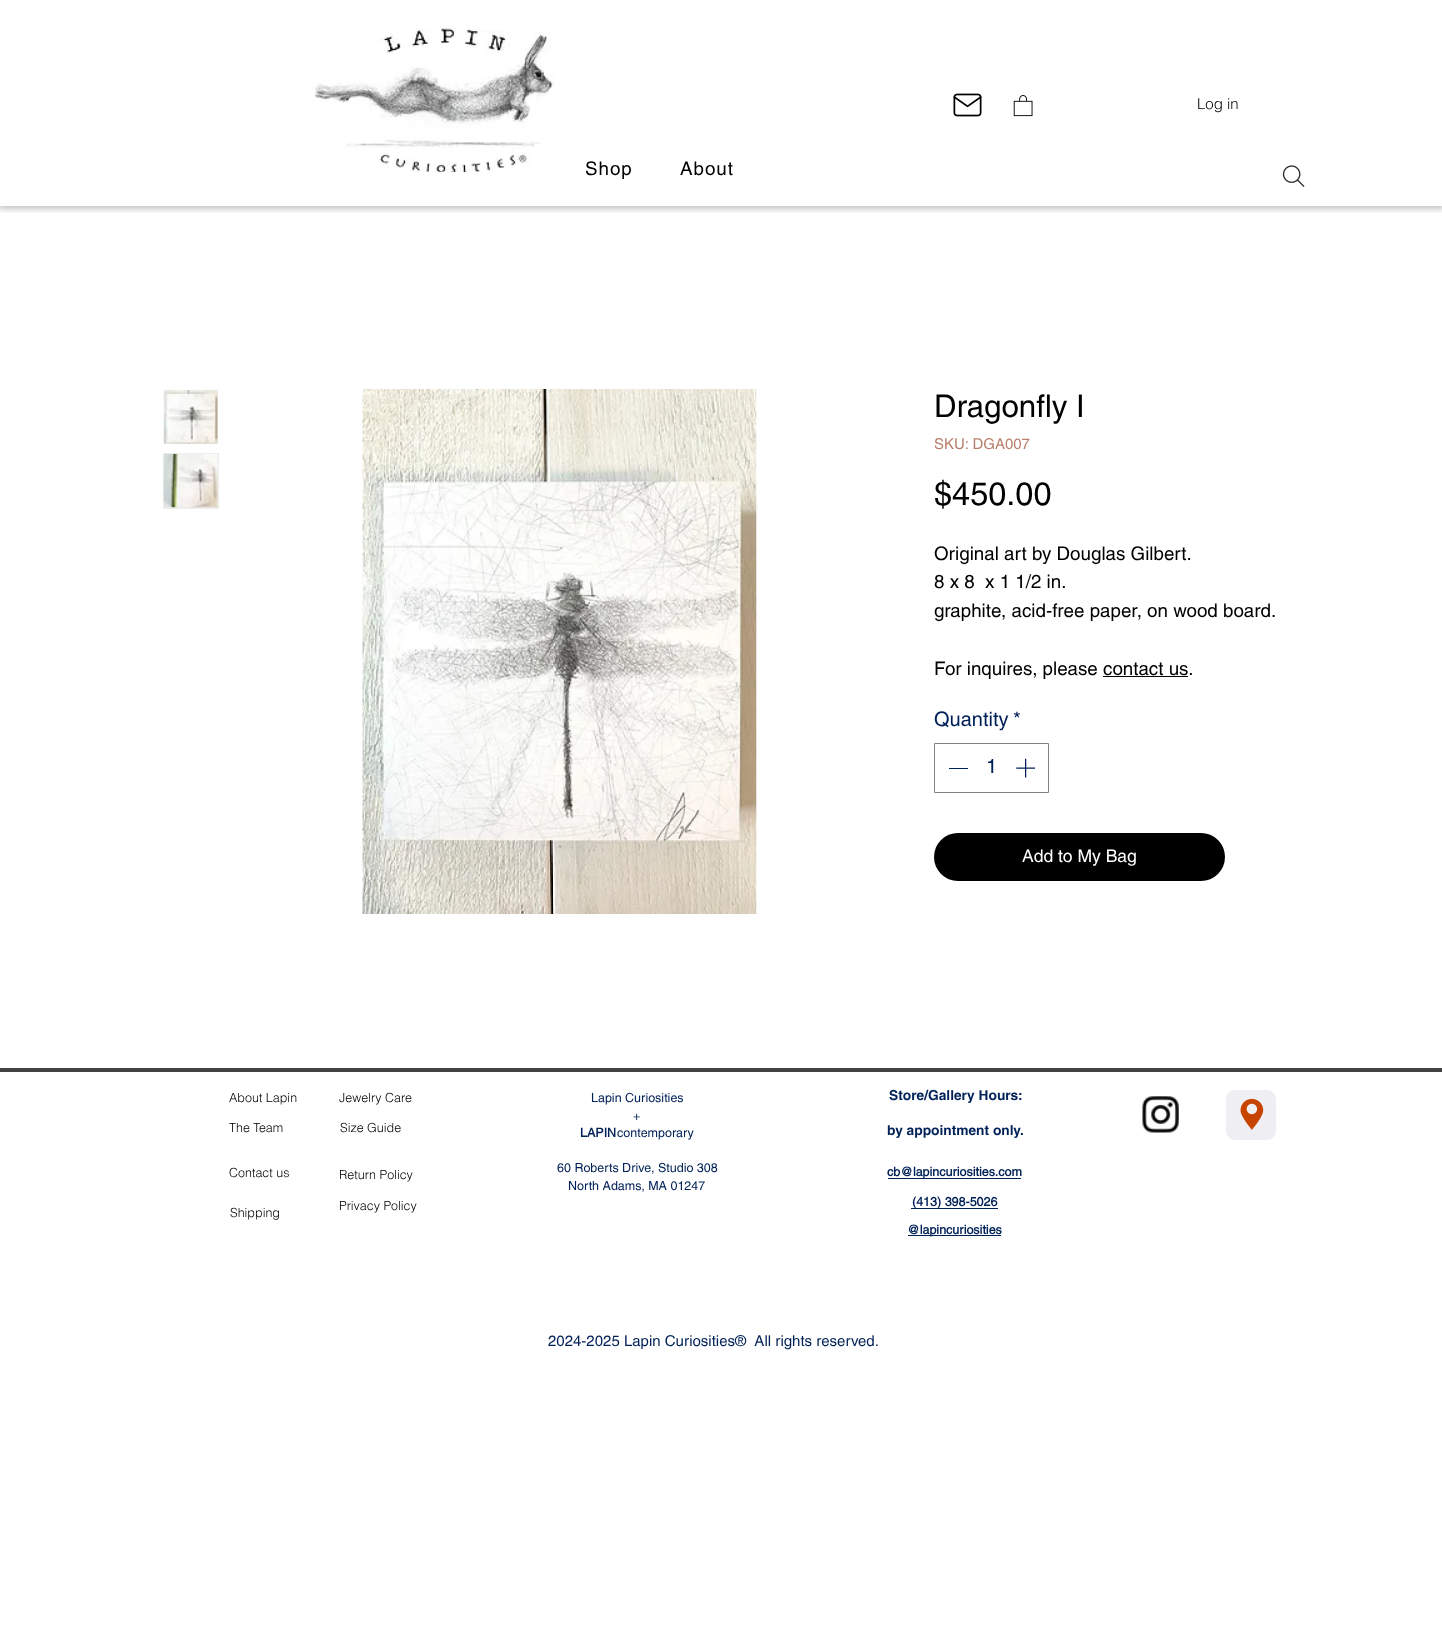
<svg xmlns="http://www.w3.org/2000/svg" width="1442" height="1630">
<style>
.a{font:300 15px helvetica;fill:#000}
.b{font:18.75px helvetica;letter-spacing:1px;fill:#000}
.c{font:31.25px helvetica;fill:#000}
.d{font:15px helvetica;fill:#b97f6d}
.e{font:32.5px helvetica;fill:#000}
.f{font:18.75px helvetica;fill:#000}
.g{font:20px helvetica;fill:#002157}
.h{font:17.5px helvetica;fill:#fff}
.i{font:300 12.5px helvetica;fill:#000}
.j{font:12.5px helvetica;fill:#002157}
.k{font:bold 12.5px helvetica;fill:#002157}
.l{font:bold 13.75px 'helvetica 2';fill:#002157}
.m{font:15px helvetica;fill:#002157}
</style>
<defs>
<clipPath id="clip1"><path d="M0 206h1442v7H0z"/></clipPath>
</defs>
<rect width="100%" height="100%" fill="#fff"/>
<g clip-path="url(#clip1)">
<path fill="#0000003d" filter="blur(3px)" d="M-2 -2h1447v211H-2z"/>
</g>
<image href="1.png" x="314" y="28" width="241" height="145"/>
<image href="2.png" x="953" y="93" width="29" height="24"/>
<image href="3.png" x="1013" y="95" width="20" height="22"/>
<image href="4.png" x="1282" y="165" width="23" height="22"/>
<path fill="#ededee" d="M164 390h54v54H164z"/>
<image href="5.png" x="163" y="390" width="55" height="54"/>
<path fill="#ededee" d="M163 453h56v56H163z"/>
<image href="6.png" x="163" y="453" width="55" height="55"/>
<image href="7.png" x="362" y="389" width="395" height="525"/>
<path fill="#000" d="M1103 676h85v1H1103z"/>
<path fill="none" stroke="#828283" d="M934.5 743.5h114v49H934.5z"/>
<path fill="#002157" d="M949 768h19v1H949z"/>
<image href="8.png" x="1016" y="758" width="19" height="20"/>
<rect fill="#000" x="934" y="833" width="291" height="48" rx="24"/>
<path fill="#424242" d="M0 1068h1442v4H0z"/>
<image href="9.png" x="1142" y="1096" width="37" height="37"/>
<rect fill="#efeff3" x="1226" y="1090" width="50" height="50" rx="9"/>
<image href="10.png" x="1240" y="1098" width="24" height="32"/>
<path fill="#002157" d="M888 1178h133v1H888z"/>
<path fill="#002157" d="M911 1208h87v1H911z"/>
<path fill="#002157" d="M908 1235h93v1H908z"/>
<text class="a" x="1197" y="109">Log in</text>
<text class="b" x="585" y="175">Shop</text>
<text class="b" x="680" y="175">About</text>
<text class="c" x="934" y="417">Dragonfly I</text>
<text class="d" x="934" y="449">SKU: DGA007</text>
<text class="e" x="934" y="505">$450.00</text>
<text class="f" x="934" y="560">Original art by Douglas Gilbert.</text>
<text class="f" xml:space="preserve" x="934" y="588">8 x 8  x 1 1/2 in.</text>
<text class="f" x="934" y="617">graphite, acid-free paper, on wood board.</text>
<text class="f" x="934" y="675">For inquires, please contact us.</text>
<text class="g" x="934" y="726">Quantity</text>
<text class="g" x="1013" y="726">*</text>
<text class="g" x="986" y="773">1</text>
<text class="h" x="1022" y="862">Add to My Bag</text>
<text class="i" x="229" y="1102">About Lapin</text>
<text class="i" x="339" y="1102">Jewelry Care</text>
<text class="j" x="591" y="1102">Lapin Curiosities</text>
<text class="j" x="633" y="1120">+</text>
<text class="k" x="580" y="1137">LAPIN</text>
<text class="j" x="617" y="1137">contemporary</text>
<text class="j" x="557" y="1172">60 Roberts Drive, Studio 308</text>
<text class="j" x="568" y="1190">North Adams, MA 01247</text>
<text class="l" x="889" y="1100">Store/Gallery Hours:</text>
<text class="l" x="887" y="1135">by appointment only.</text>
<text class="i" x="229" y="1132">The Team</text>
<text class="i" x="340" y="1132">Size Guide</text>
<text class="i" x="229" y="1177">Contact us</text>
<text class="i" x="339" y="1179">Return Policy</text>
<text class="k" x="887" y="1176">cb@lapincuriosities.com</text>
<text class="k" x="912" y="1206">(413) 398-5026</text>
<text class="k" x="907" y="1234">@lapincuriosities</text>
<text class="i" x="230" y="1217">Shipping</text>
<text class="i" x="339" y="1210">Privacy Policy</text>
<text class="m" xml:space="preserve" x="548" y="1346">2024-2025 Lapin Curiosities®  All rights reserved.</text>
</svg>
